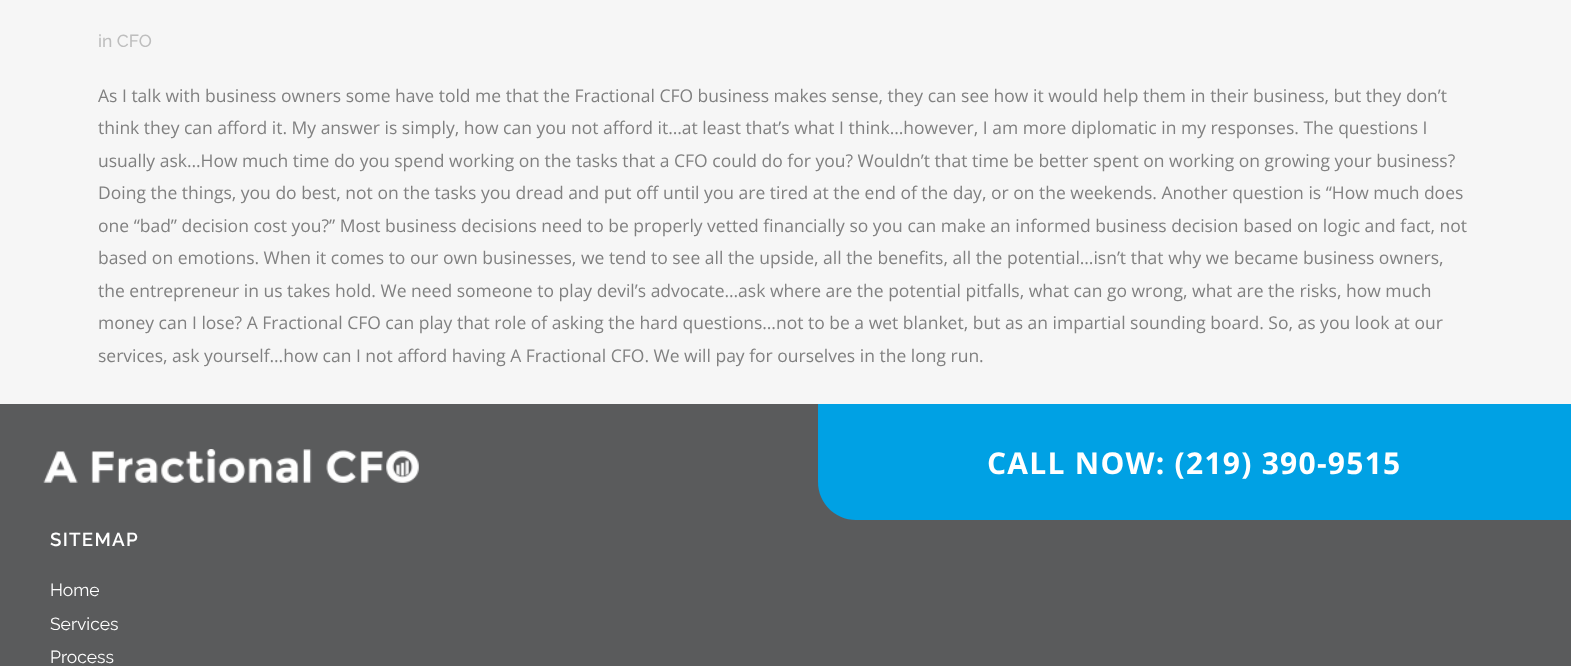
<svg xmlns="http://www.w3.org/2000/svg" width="1571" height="666">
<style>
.a{font:500 17.5px Raleway;fill:#bebebe}
.b{font:17.5px Open Sans;fill:#818181}
.c{font:bold 30px Open Sans;letter-spacing:1.25px;fill:#fff}
.d{font:600 18.75px Raleway;letter-spacing:1.25px;fill:#fff}
.e{font:17.5px Raleway;fill:#fff}
</style>
<rect width="100%" height="100%" fill="#f6f6f6"/>
<path fill="#5a5b5c" d="M0 404h1571v262H0z"/>
<path fill="#00a1e4" d="M818 404h753v116h-715c-21 0-38-17-38-38z"/>
<image href="1.png" x="43" y="449" width="376" height="34"/>
<text class="a" x="98" y="47">in CFO</text>
<text class="b" x="98" y="102">As I talk with business owners some have told me that the Fractional CFO business makes sense, they can see how it would help them in their business, but they don’t</text>
<text class="b" x="98" y="134">think they can afford it. My answer is simply, how can you not afford it…at least that’s what I think…however, I am more diplomatic in my responses. The questions I</text>
<text class="b" x="98" y="167">usually ask…How much time do you spend working on the tasks that a CFO could do for you? Wouldn’t that time be better spent on working on growing your business?</text>
<text class="b" x="98" y="199">Doing the things, you do best, not on the tasks you dread and put off until you are tired at the end of the day, or on the weekends. Another question is “How much does</text>
<text class="b" x="98" y="232">one “bad” decision cost you?” Most business decisions need to be properly vetted financially so you can make an informed business decision based on logic and fact, not</text>
<text class="b" x="98" y="264">based on emotions. When it comes to our own businesses, we tend to see all the upside, all the benefits, all the potential…isn’t that why we became business owners,</text>
<text class="b" x="98" y="297">the entrepreneur in us takes hold. We need someone to play devil’s advocate…ask where are the potential pitfalls, what can go wrong, what are the risks, how much</text>
<text class="b" x="98" y="329">money can I lose? A Fractional CFO can play that role of asking the hard questions…not to be a wet blanket, but as an impartial sounding board. So, as you look at our</text>
<text class="b" x="98" y="362">services, ask yourself…how can I not afford having A Fractional CFO. We will pay for ourselves in the long run.</text>
<text class="c" x="987" y="474">CALL NOW: (219) 390-9515</text>
<text class="d" x="50" y="546">SITEMAP</text>
<text class="e" x="50" y="596">Home</text>
<text class="e" x="50" y="630">Services</text>
<text class="e" x="50" y="663">Process</text>
</svg>
